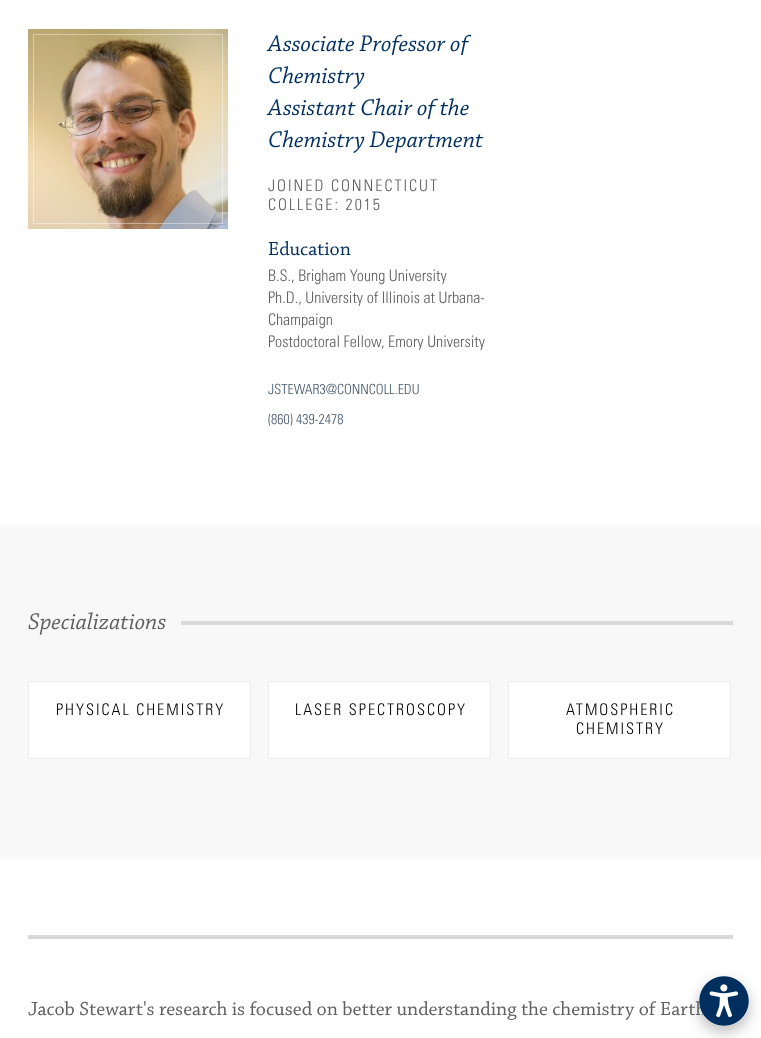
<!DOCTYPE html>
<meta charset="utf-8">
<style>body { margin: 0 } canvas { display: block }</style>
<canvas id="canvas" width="761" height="1038"></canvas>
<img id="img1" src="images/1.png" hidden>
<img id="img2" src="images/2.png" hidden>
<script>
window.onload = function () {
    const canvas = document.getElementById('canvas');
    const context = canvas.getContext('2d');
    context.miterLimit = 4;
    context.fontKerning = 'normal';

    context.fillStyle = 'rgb(255, 255, 255)';
    context.fillRect(0, 0, 761, 1038);
    context.drawImage(document.getElementById('img1'), 28, 29, 200, 200);
    context.strokeStyle = 'rgba(255, 255, 255, 0.4)';
    context.strokeRect(33.5, 34.5, 189, 189);
    context.fillStyle = 'rgb(248, 248, 248)';
    context.fillRect(0, 525, 761, 334);
    context.fillStyle = 'rgb(216, 216, 216)';
    context.fillRect(181, 621, 552, 4);
    context.fillStyle = 'rgb(255, 255, 255)';
    context.beginPath();
    context.rect(28.5, 681.5, 222, 77);
    context.fill();
    context.strokeStyle = 'rgb(235, 235, 235)';
    context.stroke();
    context.beginPath();
    context.rect(268.5, 681.5, 222, 77);
    context.fill();
    context.stroke();
    context.beginPath();
    context.rect(508.5, 681.5, 222, 77);
    context.fill();
    context.stroke();
    context.fillStyle = 'rgb(216, 216, 216)';
    context.fillRect(28, 935, 705, 4);
    context.fillStyle = 'rgba(0, 0, 0, 0.23)';
    context.filter = 'blur(6.5px)';
    context.beginPath();
    context.roundRect(698, 981, 52, 52, 26);
    context.fill();
    context.filter = 'none';
    context.font = 'italic 24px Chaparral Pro';
    context.fillStyle = 'rgb(0, 47, 95)';
    context.fillText('Associate Professor of', 268, 51);
    context.fillText('Chemistry', 268, 83);
    context.fillText('Assistant Chair of the', 268, 115);
    context.fillText('Chemistry Department', 268, 147);
    context.letterSpacing = '2px';
    context.font = '300 16px "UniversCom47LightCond"';
    context.fillStyle = 'rgb(97, 96, 96)';
    context.fillText('JOINED CONNECTICUT', 268, 191);
    context.fillText('COLLEGE: 2015', 268, 210);
    context.letterSpacing = '0px';
    context.font = '20px Chaparral Pro';
    context.fillStyle = 'rgb(0, 47, 95)';
    context.fillText('Education', 268, 255);
    context.font = '300 16px "UniversCom47LightCond"';
    context.fillStyle = 'rgb(97, 96, 96)';
    context.fillText('B.S., Brigham Young University', 268, 281);
    context.fillText('Ph.D., University of Illinois at Urbana-', 268, 303);
    context.fillText('Champaign', 268, 325);
    context.fillText('Postdoctoral Fellow, Emory University', 268, 347);
    context.font = '300 14px "UniversCom47LightCond"';
    context.fillStyle = 'rgb(71, 90, 110)';
    context.fillText('JSTEWAR3@CONNCOLL.EDU', 268, 394);
    context.fillText('(860) 439-2478', 268, 424);
    context.font = 'italic 24px Chaparral Pro';
    context.fillStyle = 'rgb(97, 96, 96)';
    context.fillText('Specializations', 28, 629);
    context.letterSpacing = '2px';
    context.font = '300 16px "UniversCom47LightCond"';
    context.fillStyle = 'rgb(0, 0, 0)';
    context.fillText('PHYSICAL CHEMISTRY', 56, 715);
    context.fillText('LASER SPECTROSCOPY', 295, 715);
    context.fillText('ATMOSPHERIC', 566, 715);
    context.fillText('CHEMISTRY', 576, 734);
    context.letterSpacing = '0px';
    context.font = '20px Chaparral Pro';
    context.fillStyle = 'rgb(97, 96, 96)';
    context.fillText('Jacob Stewart\'s research is focused on better understanding the chemistry of Earth', 28, 1015);
    context.drawImage(document.getElementById('img2'), 699, 976, 50, 50);
};
</script>
